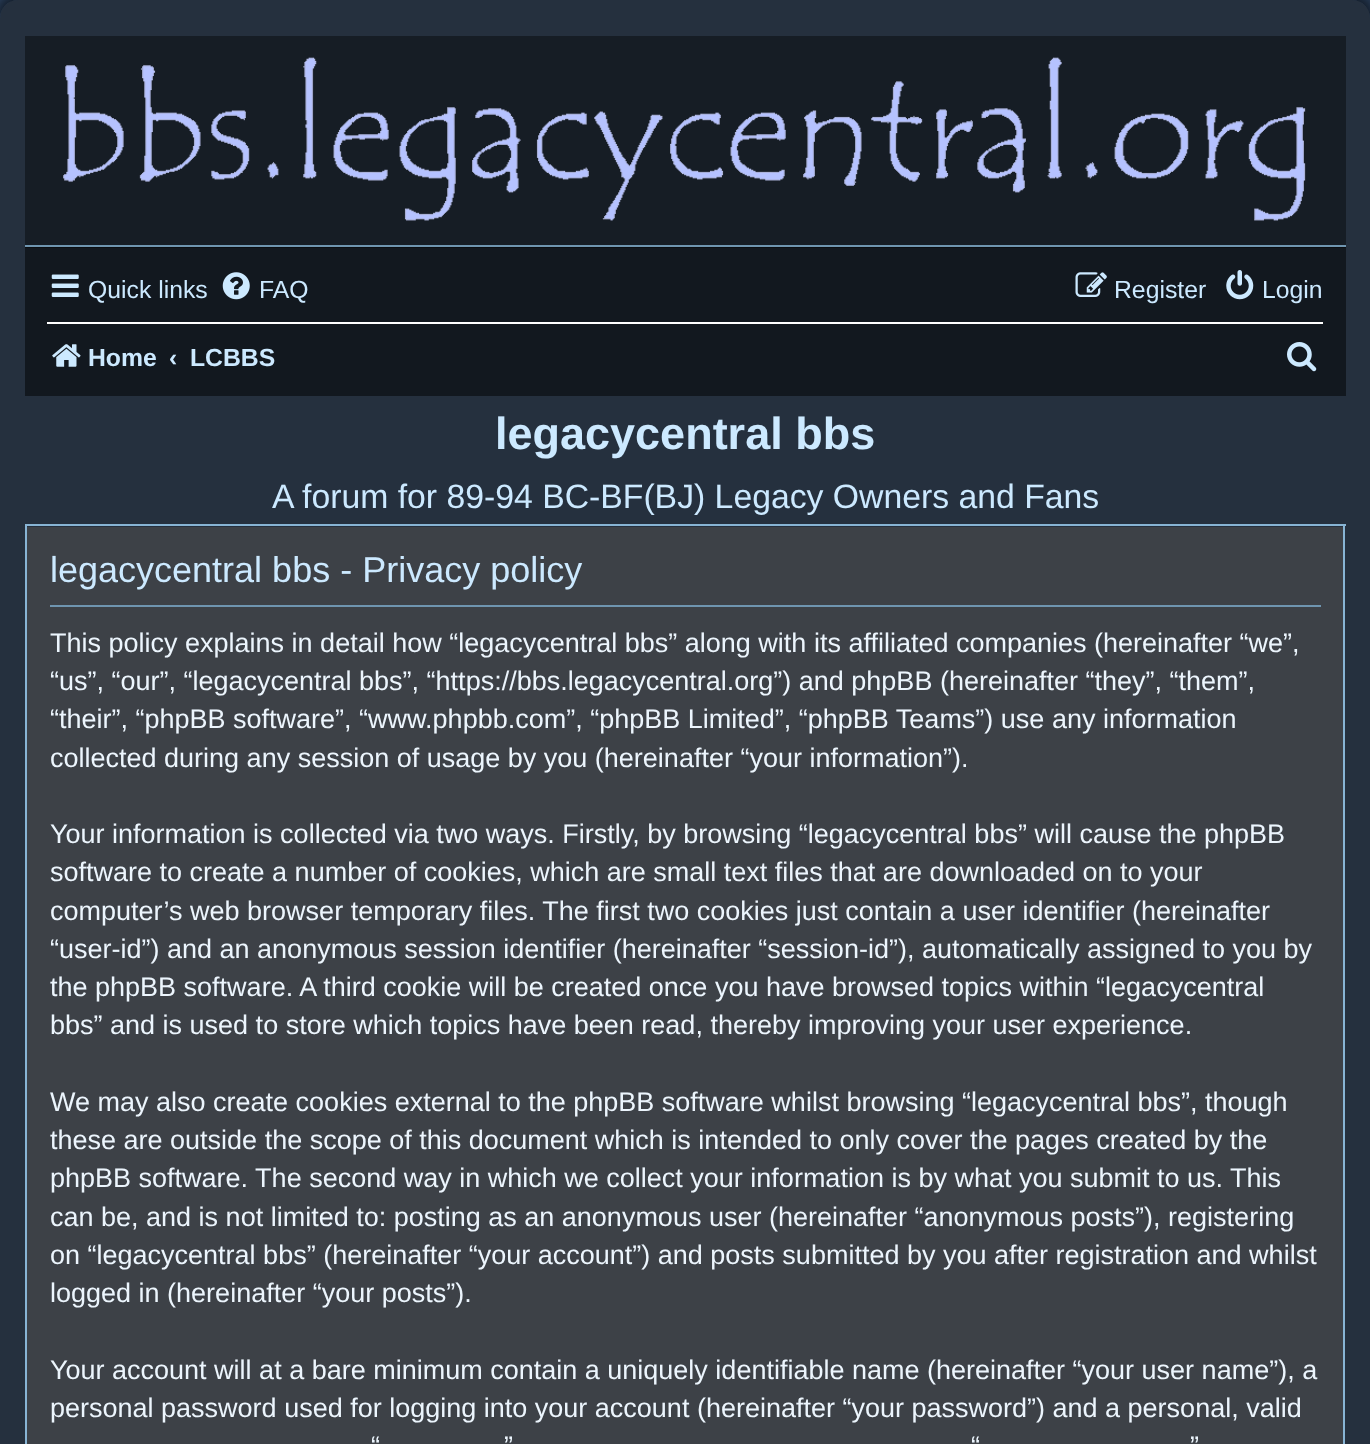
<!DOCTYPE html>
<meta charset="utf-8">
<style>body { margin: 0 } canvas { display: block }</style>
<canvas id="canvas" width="1370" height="1444"></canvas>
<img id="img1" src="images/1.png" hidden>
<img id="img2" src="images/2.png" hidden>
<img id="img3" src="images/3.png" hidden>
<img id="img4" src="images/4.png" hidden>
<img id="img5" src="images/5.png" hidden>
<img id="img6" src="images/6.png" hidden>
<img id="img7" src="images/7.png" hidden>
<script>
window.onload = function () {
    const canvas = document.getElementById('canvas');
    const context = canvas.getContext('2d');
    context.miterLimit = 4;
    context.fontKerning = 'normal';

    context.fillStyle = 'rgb(46, 69, 99)';
    context.fillRect(0, 0, 1370, 1444);
    context.save();
    context.beginPath();
    context.moveTo(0, 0);
    context.lineTo(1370, 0);
    context.lineTo(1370, 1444);
    context.lineTo(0, 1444);
    context.closePath();
    context.moveTo(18, 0);
    context.lineTo(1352, 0);
    context.bezierCurveTo(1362, 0, 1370, 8, 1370, 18);
    context.lineTo(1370, 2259);
    context.bezierCurveTo(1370, 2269, 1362, 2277, 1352, 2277);
    context.lineTo(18, 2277);
    context.bezierCurveTo(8, 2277, 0, 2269, 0, 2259);
    context.lineTo(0, 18);
    context.bezierCurveTo(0, 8, 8, 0, 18, 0);
    context.closePath();
    context.clip('evenodd');
    context.fillStyle = 'rgba(0, 0, 0, 0.62)';
    context.filter = 'blur(7px)';
    context.beginPath();
    context.roundRect(-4, -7, 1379, 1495, 23);
    context.fill();
    context.filter = 'none';
    context.restore();
    context.fillStyle = 'rgba(28, 28, 28, 0.52)';
    context.beginPath();
    context.roundRect(0, 0, 1370, 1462, 18);
    context.fill();
    context.fillStyle = 'rgb(22, 29, 37)';
    context.fillRect(25, 36, 1321, 212);
    context.drawImage(document.getElementById('img1'), 63, 57, 1243, 164);
    context.fillStyle = 'rgba(0, 0, 0, 0.5)';
    context.fillRect(25, 247, 1321, 149);
    context.fillStyle = 'rgb(111, 149, 176)';
    context.fillRect(25, 245, 1321, 2);
    context.drawImage(document.getElementById('img2'), 51, 274, 28, 23);
    context.drawImage(document.getElementById('img3'), 222, 272, 28, 28);
    context.drawImage(document.getElementById('img4'), 1075, 272, 32, 25);
    context.drawImage(document.getElementById('img5'), 1226, 270, 28, 30);
    context.fillStyle = 'rgb(255, 255, 255)';
    context.fillRect(47, 322, 1276, 2);
    context.drawImage(document.getElementById('img6'), 52, 344, 29, 23);
    context.drawImage(document.getElementById('img7'), 1287, 342, 30, 30);
    context.fillStyle = 'rgb(61, 65, 71)';
    context.fillRect(27, 527, 1316, 917);
    context.fillStyle = 'rgb(136, 180, 212)';
    context.fillRect(25, 524, 1321, 2);
    context.fillRect(1343, 524, 2, 920);
    context.fillRect(25, 524, 2, 920);
    context.fillStyle = 'rgb(111, 149, 176)';
    context.fillRect(50, 605, 1271, 2);
    context.font = '24.75px Liberation Sans';
    context.fillStyle = 'rgb(204, 233, 255)';
    context.fillText('Quick links', 88, 298);
    context.fillText('FAQ', 259, 298);
    context.fillText('Register', 1114, 298);
    context.fillText('Login', 1262, 298);
    context.font = 'bold 24.75px Liberation Sans';
    context.fillText('Home', 88, 366);
    context.fillText('‹', 169, 366);
    context.fillText('LCBBS', 190, 366);
    context.font = 'bold 45px Liberation Sans';
    context.fillText('legacycentral bbs', 495, 449);
    context.font = '33.75px Liberation Sans';
    context.fillText('A forum for 89-94 BC-BF(BJ) Legacy Owners and Fans', 272, 508);
    context.font = '36px Liberation Sans';
    context.fillText('legacycentral bbs - Privacy policy', 50, 582);
    context.font = '27px Liberation Sans';
    context.fillStyle = 'rgb(236, 245, 253)';
    context.fillText('This policy explains in detail how “legacycentral bbs” along with its affiliated companies (hereinafter “we”,', 50, 652);
    context.fillText('“us”, “our”, “legacycentral bbs”, “https://bbs.legacycentral.org”) and phpBB (hereinafter “they”, “them”,', 50, 690);
    context.fillText('“their”, “phpBB software”, “www.phpbb.com”, “phpBB Limited”, “phpBB Teams”) use any information', 50, 728);
    context.fillText('collected during any session of usage by you (hereinafter “your information”).', 50, 767);
    context.fillText('Your information is collected via two ways. Firstly, by browsing “legacycentral bbs” will cause the phpBB', 50, 843);
    context.fillText('software to create a number of cookies, which are small text files that are downloaded on to your', 50, 881);
    context.fillText('computer’s web browser temporary files. The first two cookies just contain a user identifier (hereinafter', 50, 920);
    context.fillText('“user-id”) and an anonymous session identifier (hereinafter “session-id”), automatically assigned to you by', 50, 958);
    context.fillText('the phpBB software. A third cookie will be created once you have browsed topics within “legacycentral', 50, 996);
    context.fillText('bbs” and is used to store which topics have been read, thereby improving your user experience.', 50, 1034);
    context.fillText('We may also create cookies external to the phpBB software whilst browsing “legacycentral bbs”, though', 50, 1111);
    context.fillText('these are outside the scope of this document which is intended to only cover the pages created by the', 50, 1149);
    context.fillText('phpBB software. The second way in which we collect your information is by what you submit to us. This', 50, 1187);
    context.fillText('can be, and is not limited to: posting as an anonymous user (hereinafter “anonymous posts”), registering', 50, 1226);
    context.fillText('on “legacycentral bbs” (hereinafter “your account”) and posts submitted by you after registration and whilst', 50, 1264);
    context.fillText('logged in (hereinafter “your posts”).', 50, 1302);
    context.fillText('Your account will at a bare minimum contain a uniquely identifiable name (hereinafter “your user name”), a', 50, 1379);
    context.fillText('personal password used for logging into your account (hereinafter “your password”) and a personal, valid', 50, 1417);
    context.fillText('“', 371, 1455);
    context.fillText('”', 504, 1455);
    context.fillText('“', 971, 1455);
    context.fillText('”', 1190, 1455);
};
</script>
